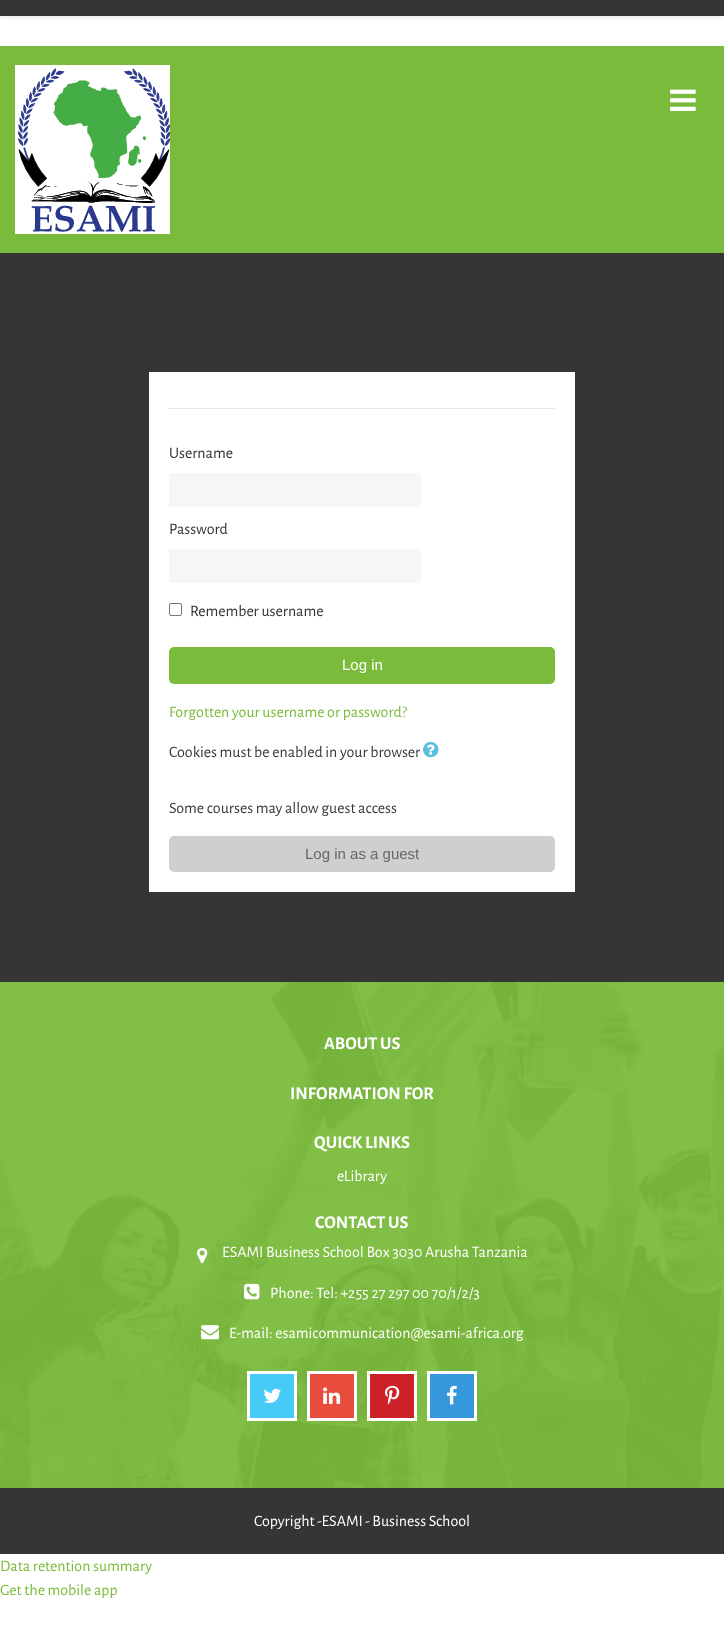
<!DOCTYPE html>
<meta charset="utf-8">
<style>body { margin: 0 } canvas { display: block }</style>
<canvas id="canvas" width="724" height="1627"></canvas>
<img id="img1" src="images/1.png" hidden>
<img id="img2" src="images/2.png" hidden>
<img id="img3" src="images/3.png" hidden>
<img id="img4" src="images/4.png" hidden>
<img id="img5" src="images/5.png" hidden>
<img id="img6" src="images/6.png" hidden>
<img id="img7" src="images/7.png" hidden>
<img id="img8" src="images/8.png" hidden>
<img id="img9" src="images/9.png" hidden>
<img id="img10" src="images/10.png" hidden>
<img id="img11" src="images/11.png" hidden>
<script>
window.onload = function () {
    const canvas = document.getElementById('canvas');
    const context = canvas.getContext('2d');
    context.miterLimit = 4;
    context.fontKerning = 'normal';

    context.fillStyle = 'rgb(255, 255, 255)';
    context.fillRect(0, 0, 724, 1627);
    context.fillStyle = 'rgba(0, 0, 0, 0.08)';
    context.filter = 'blur(2px)';
    context.beginPath();
    context.rect(0, 2, 724, 16);
    context.fill();
    context.filter = 'none';
    context.fillStyle = 'rgb(53, 53, 53)';
    context.fillRect(0, 0, 724, 16);
    context.fillStyle = 'rgb(122, 187, 59)';
    context.fillRect(0, 46, 724, 207);
    context.drawImage(document.getElementById('img1'), 15, 65, 155, 169);
    context.drawImage(document.getElementById('img2'), 670, 89, 26, 22);
    context.fillStyle = 'rgb(53, 53, 53)';
    context.fillRect(0, 253, 724, 729);
    context.fillStyle = 'rgb(255, 255, 255)';
    context.fillRect(149, 372, 426, 520);
    context.fillStyle = 'rgb(230, 230, 230)';
    context.fillRect(169, 408, 386, 1);
    context.fillStyle = 'rgb(246, 246, 246)';
    context.fillRect(169, 473, 252, 34);
    context.fillRect(169, 549, 252, 34);
    context.beginPath();
    context.roundRect(169.5, 603.5, 12, 12, 1.5);
    context.strokeStyle = 'rgb(118, 118, 118)';
    context.stroke();
    context.fillStyle = 'rgb(122, 187, 59)';
    context.beginPath();
    context.roundRect(169, 647, 386, 37, 5);
    context.fill();
    context.drawImage(document.getElementById('img3'), 423, 741, 16, 17);
    context.fillStyle = 'rgb(207, 207, 207)';
    context.beginPath();
    context.roundRect(169, 836, 386, 36, 5);
    context.fill();
    context.drawImage(document.getElementById('img4'), 0, 982, 724, 506);
    context.drawImage(document.getElementById('img5'), 197, 1247, 11, 17);
    context.drawImage(document.getElementById('img6'), 244, 1283, 16, 17);
    context.drawImage(document.getElementById('img7'), 201, 1325, 18, 15);
    context.fillStyle = 'rgb(71, 202, 246)';
    context.beginPath();
    context.rect(248.5, 1372.5, 47, 47);
    context.fill();
    context.strokeStyle = 'rgb(255, 255, 255)';
    context.lineWidth = 3;
    context.stroke();
    context.drawImage(document.getElementById('img8'), 263, 1388, 18, 15);
    context.fillStyle = 'rgb(232, 76, 61)';
    context.beginPath();
    context.rect(308.5, 1372.5, 47, 47);
    context.fill();
    context.stroke();
    context.drawImage(document.getElementById('img9'), 323, 1387, 18, 17);
    context.fillStyle = 'rgb(205, 33, 41)';
    context.beginPath();
    context.rect(368.5, 1372.5, 47, 47);
    context.fill();
    context.stroke();
    context.drawImage(document.getElementById('img10'), 385, 1385, 15, 20);
    context.fillStyle = 'rgb(53, 152, 220)';
    context.beginPath();
    context.rect(428.5, 1372.5, 47, 47);
    context.fill();
    context.stroke();
    context.drawImage(document.getElementById('img11'), 447, 1385, 10, 20);
    context.fillStyle = 'rgb(53, 53, 53)';
    context.fillRect(0, 1488, 724, 66);
    context.font = '16px Alegreya Sans';
    context.fillStyle = 'rgb(51, 51, 51)';
    context.fillText('Username', 169, 458);
    context.fillText('Password', 169, 534);
    context.fillText('Remember username', 190, 616);
    context.font = '15px Liberation Sans';
    context.fillStyle = 'rgb(255, 255, 255)';
    context.fillText('Log in', 342, 670);
    context.font = '16px Alegreya Sans';
    context.fillStyle = 'rgb(122, 187, 59)';
    context.fillText('Forgotten your username or password?', 169, 717);
    context.fillStyle = 'rgb(55, 58, 60)';
    context.fillText('Cookies must be enabled in your browser', 169, 757);
    context.fillText('Some courses may allow guest access', 169, 813);
    context.font = '15px Liberation Sans';
    context.fillStyle = 'rgb(103, 103, 103)';
    context.fillText('Log in as a guest', 305, 859);
    context.font = 'bold 18px Alegreya Sans';
    context.fillStyle = 'rgb(255, 255, 255)';
    context.fillText('ABOUT US', 324, 1049);
    context.fillText('INFORMATION FOR', 290, 1099);
    context.fillText('QUICK LINKS', 314, 1148);
    context.font = '16px Alegreya Sans';
    context.fillText('eLibrary', 337, 1181);
    context.font = 'bold 18px Alegreya Sans';
    context.fillText('CONTACT US', 315, 1228);
    context.font = '16px Alegreya Sans';
    context.fillText('ESAMI Business School Box 3030 Arusha Tanzania', 222, 1257);
    context.fillText('Phone: Tel: +255 27 297 00 70/1/2/3', 270, 1298);
    context.fillText('E-mail: esamicommunication@esami-africa.org', 229, 1338);
    context.fillText('Copyright -ESAMI - Business School', 254, 1526);
    context.fillStyle = 'rgb(122, 187, 59)';
    context.fillText('Data retention summary', 0, 1571);
    context.fillText('Get the mobile app', 0, 1595);
};
</script>
